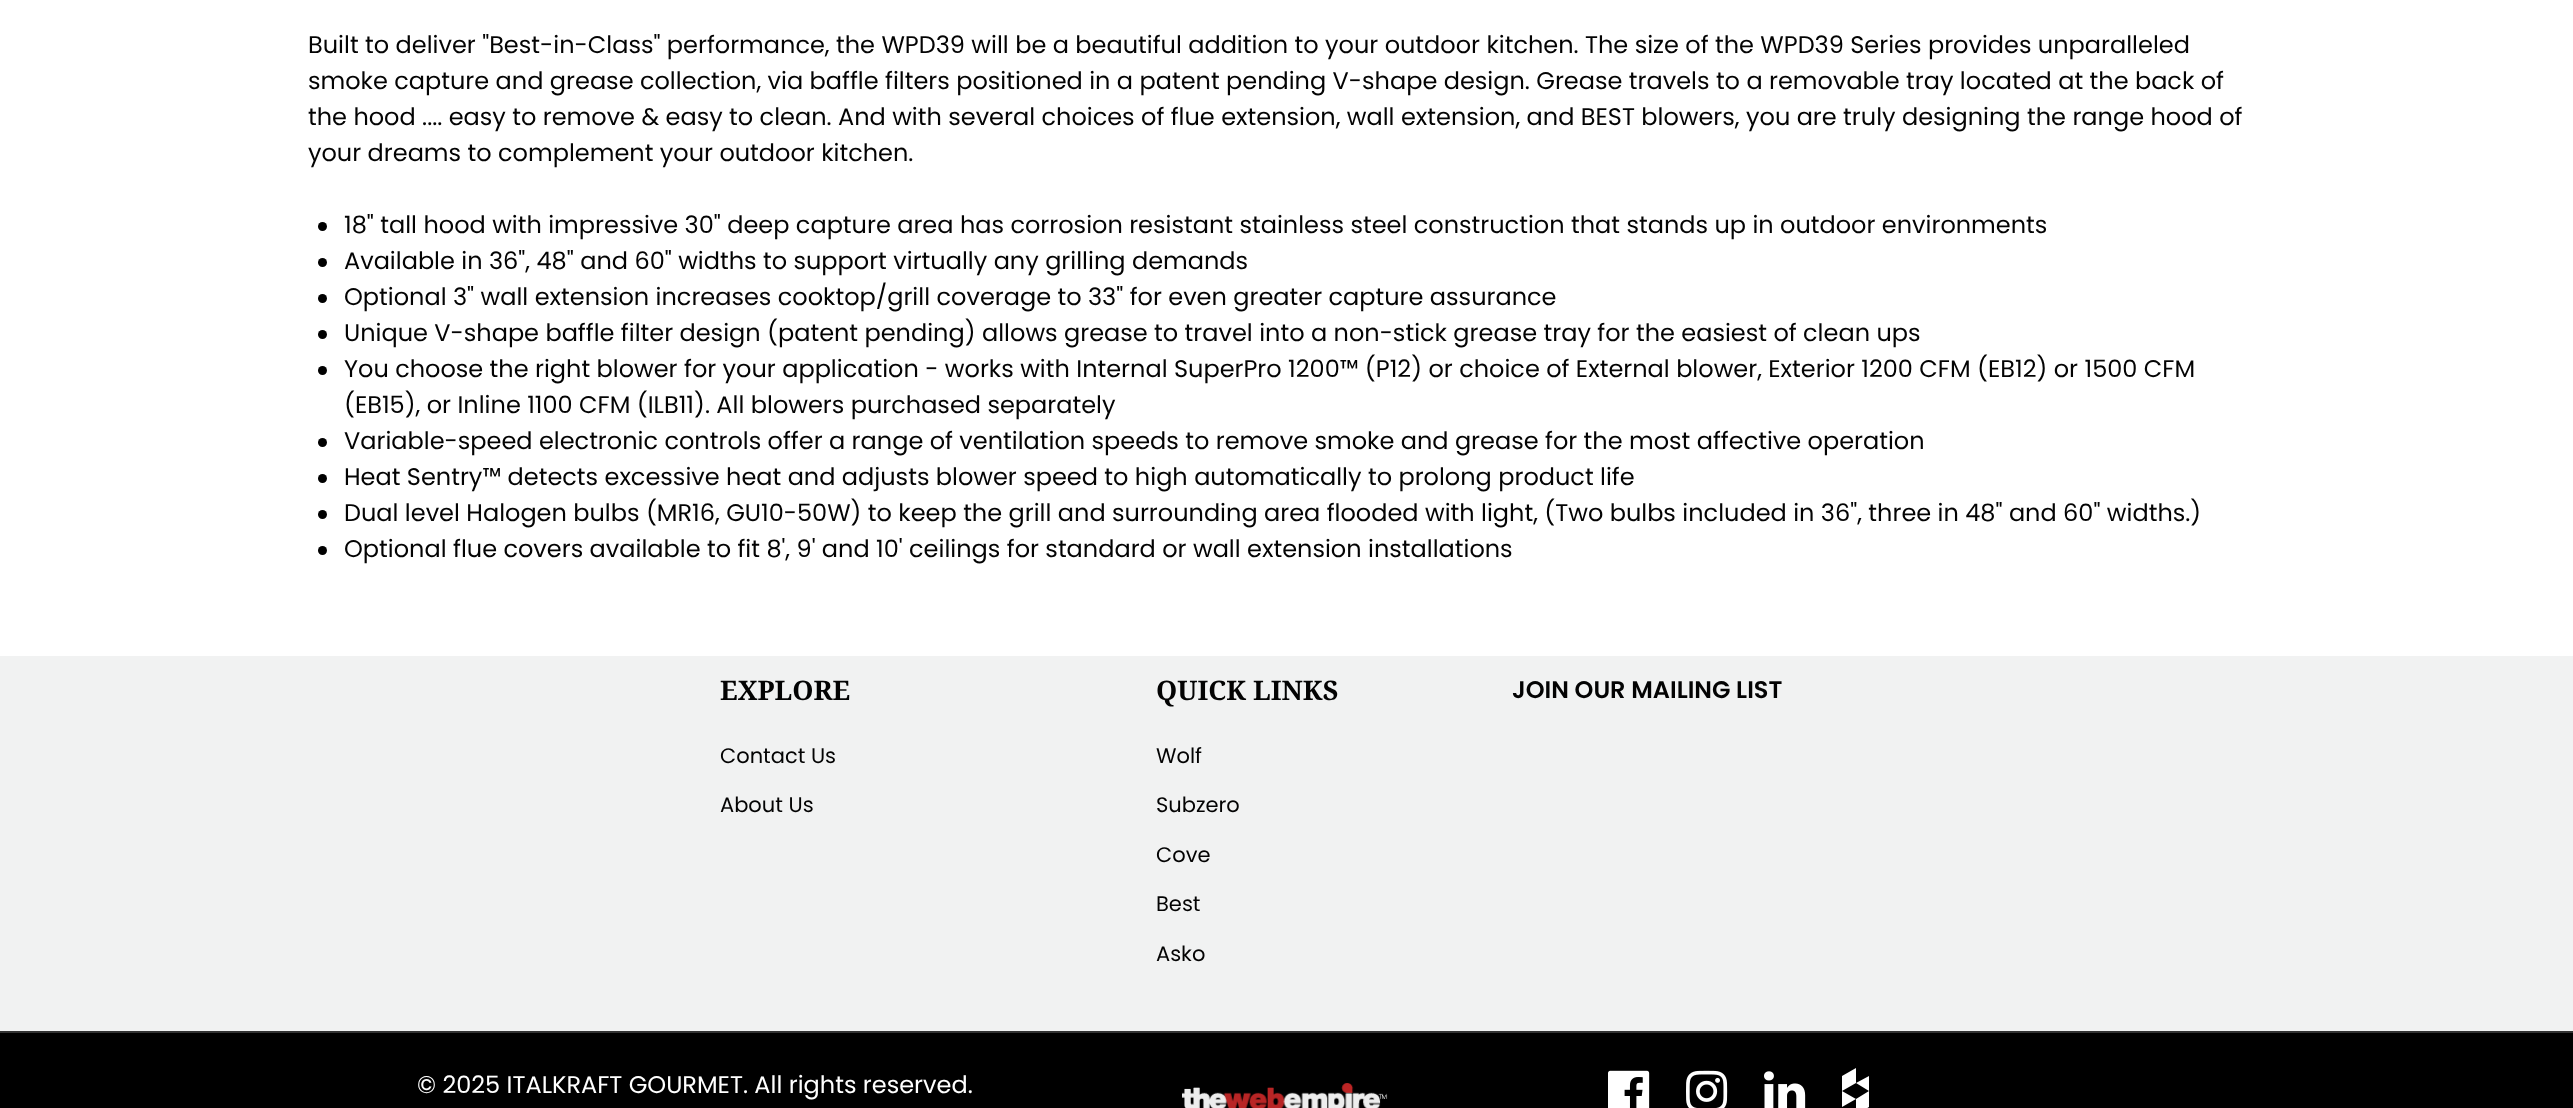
<!DOCTYPE html>
<meta charset="utf-8">
<style>body { margin: 0 } canvas { display: block }</style>
<canvas id="canvas" width="2573" height="1108"></canvas>
<img id="img1" src="images/1.png" hidden>
<img id="img2" src="images/2.png" hidden>
<img id="img3" src="images/3.png" hidden>
<img id="img4" src="images/4.png" hidden>
<script>
window.onload = function () {
    const canvas = document.getElementById('canvas');
    const context = canvas.getContext('2d');
    context.miterLimit = 4;
    context.fontKerning = 'normal';

    context.fillStyle = 'rgb(255, 255, 255)';
    context.fillRect(0, 0, 2573, 1108);
    context.fillStyle = 'rgb(0, 0, 0)';
    context.beginPath();
    context.arc(322.5, 226.5, 4.5, 0, 2 * Math.PI);
    context.fill();
    context.beginPath();
    context.arc(322.5, 262.5, 4.5, 0, 2 * Math.PI);
    context.fill();
    context.beginPath();
    context.arc(322.5, 298.5, 4.5, 0, 2 * Math.PI);
    context.fill();
    context.beginPath();
    context.arc(322.5, 334.5, 4.5, 0, 2 * Math.PI);
    context.fill();
    context.beginPath();
    context.arc(322.5, 370.5, 4.5, 0, 2 * Math.PI);
    context.fill();
    context.beginPath();
    context.arc(322.5, 442.5, 4.5, 0, 2 * Math.PI);
    context.fill();
    context.beginPath();
    context.arc(322.5, 478.5, 4.5, 0, 2 * Math.PI);
    context.fill();
    context.beginPath();
    context.arc(322.5, 514.5, 4.5, 0, 2 * Math.PI);
    context.fill();
    context.beginPath();
    context.arc(322.5, 550.5, 4.5, 0, 2 * Math.PI);
    context.fill();
    context.fillStyle = 'rgb(241, 242, 242)';
    context.fillRect(0, 656, 2573, 375);
    context.fillStyle = 'rgb(0, 0, 0)';
    context.fillRect(0, 1033, 2573, 75);
    context.fillStyle = 'rgb(51, 51, 51)';
    context.fillRect(0, 1031, 2573, 2);
    context.drawImage(document.getElementById('img1'), 1182, 1083, 206, 25);
    context.drawImage(document.getElementById('img2'), 1608, 1070, 42, 38);
    context.drawImage(document.getElementById('img3'), 1686, 1070, 42, 38);
    context.drawImage(document.getElementById('img4'), 1764, 1071, 42, 37);
    context.fillStyle = 'rgb(255, 255, 255)';
    context.beginPath();
    context.moveTo(1856, 1099);
    context.lineTo(1869, 1091);
    context.lineTo(1869, 1107);
    context.lineTo(1856, 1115);
    context.closePath();
    context.moveTo(1842, 1091);
    context.lineTo(1842, 1107);
    context.lineTo(1856, 1099);
    context.closePath();
    context.moveTo(1856, 1068);
    context.lineTo(1856, 1083);
    context.lineTo(1842, 1091);
    context.lineTo(1842, 1076);
    context.closePath();
    context.moveTo(1856, 1083);
    context.lineTo(1869, 1076);
    context.lineTo(1869, 1091);
    context.closePath();
    context.fill();
    context.font = '24px Poppins';
    context.fillStyle = 'rgb(3, 3, 3)';
    context.fillText('Built to deliver "Best-in-Class" performance, the WPD39 will be a beautiful addition to your outdoor kitchen. The size of the WPD39 Series provides unparalleled', 308, 53);
    context.fillText('smoke capture and grease collection, via baffle filters positioned in a patent pending V-shape design. Grease travels to a removable tray located at the back of', 308, 89);
    context.fillText('the hood .... easy to remove & easy to clean. And with several choices of flue extension, wall extension, and BEST blowers, you are truly designing the range hood of', 308, 125);
    context.fillText('your dreams to complement your outdoor kitchen.', 308, 161);
    context.fillText('18" tall hood with impressive 30" deep capture area has corrosion resistant stainless steel construction that stands up in outdoor environments', 344, 233);
    context.fillText('Available in 36", 48" and 60" widths to support virtually any grilling demands', 344, 269);
    context.fillText('Optional 3" wall extension increases cooktop/grill coverage to 33" for even greater capture assurance', 344, 305);
    context.fillText('Unique V-shape baffle filter design (patent pending) allows grease to travel into a non-stick grease tray for the easiest of clean ups', 344, 341);
    context.fillText('You choose the right blower for your application - works with Internal SuperPro 1200™ (P12) or choice of External blower, Exterior 1200 CFM (EB12) or 1500 CFM', 344, 377);
    context.fillText('(EB15), or Inline 1100 CFM (ILB11). All blowers purchased separately', 344, 413);
    context.fillText('Variable-speed electronic controls offer a range of ventilation speeds to remove smoke and grease for the most affective operation', 344, 449);
    context.fillText('Heat Sentry™ detects excessive heat and adjusts blower speed to high automatically to prolong product life', 344, 485);
    context.fillText('Dual level Halogen bulbs (MR16, GU10-50W) to keep the grill and surrounding area flooded with light, (Two bulbs included in 36", three in 48" and 60" widths.)', 344, 521);
    context.fillText('Optional flue covers available to fit 8\', 9\' and 10\' ceilings for standard or wall extension installations', 344, 557);
    context.font = 'bold 27px Noto Serif';
    context.fillText('EXPLORE', 720, 700);
    context.font = '21px Poppins';
    context.fillText('Contact Us', 720, 763);
    context.fillText('About Us', 720, 812);
    context.font = 'bold 27px Noto Serif';
    context.fillText('QUICK LINKS', 1156, 700);
    context.font = '21px Poppins';
    context.fillText('Wolf', 1156, 763);
    context.fillText('Subzero', 1156, 812);
    context.fillText('Cove', 1156, 862);
    context.fillText('Best', 1156, 911);
    context.fillText('Asko', 1156, 961);
    context.font = '600 24px Poppins';
    context.fillText('JOIN OUR MAILING LIST', 1512, 698);
    context.font = '24px Poppins';
    context.fillStyle = 'rgb(255, 255, 255)';
    context.fillText('© 2025 ITALKRAFT GOURMET. All rights reserved.', 417, 1093);
};
</script>
